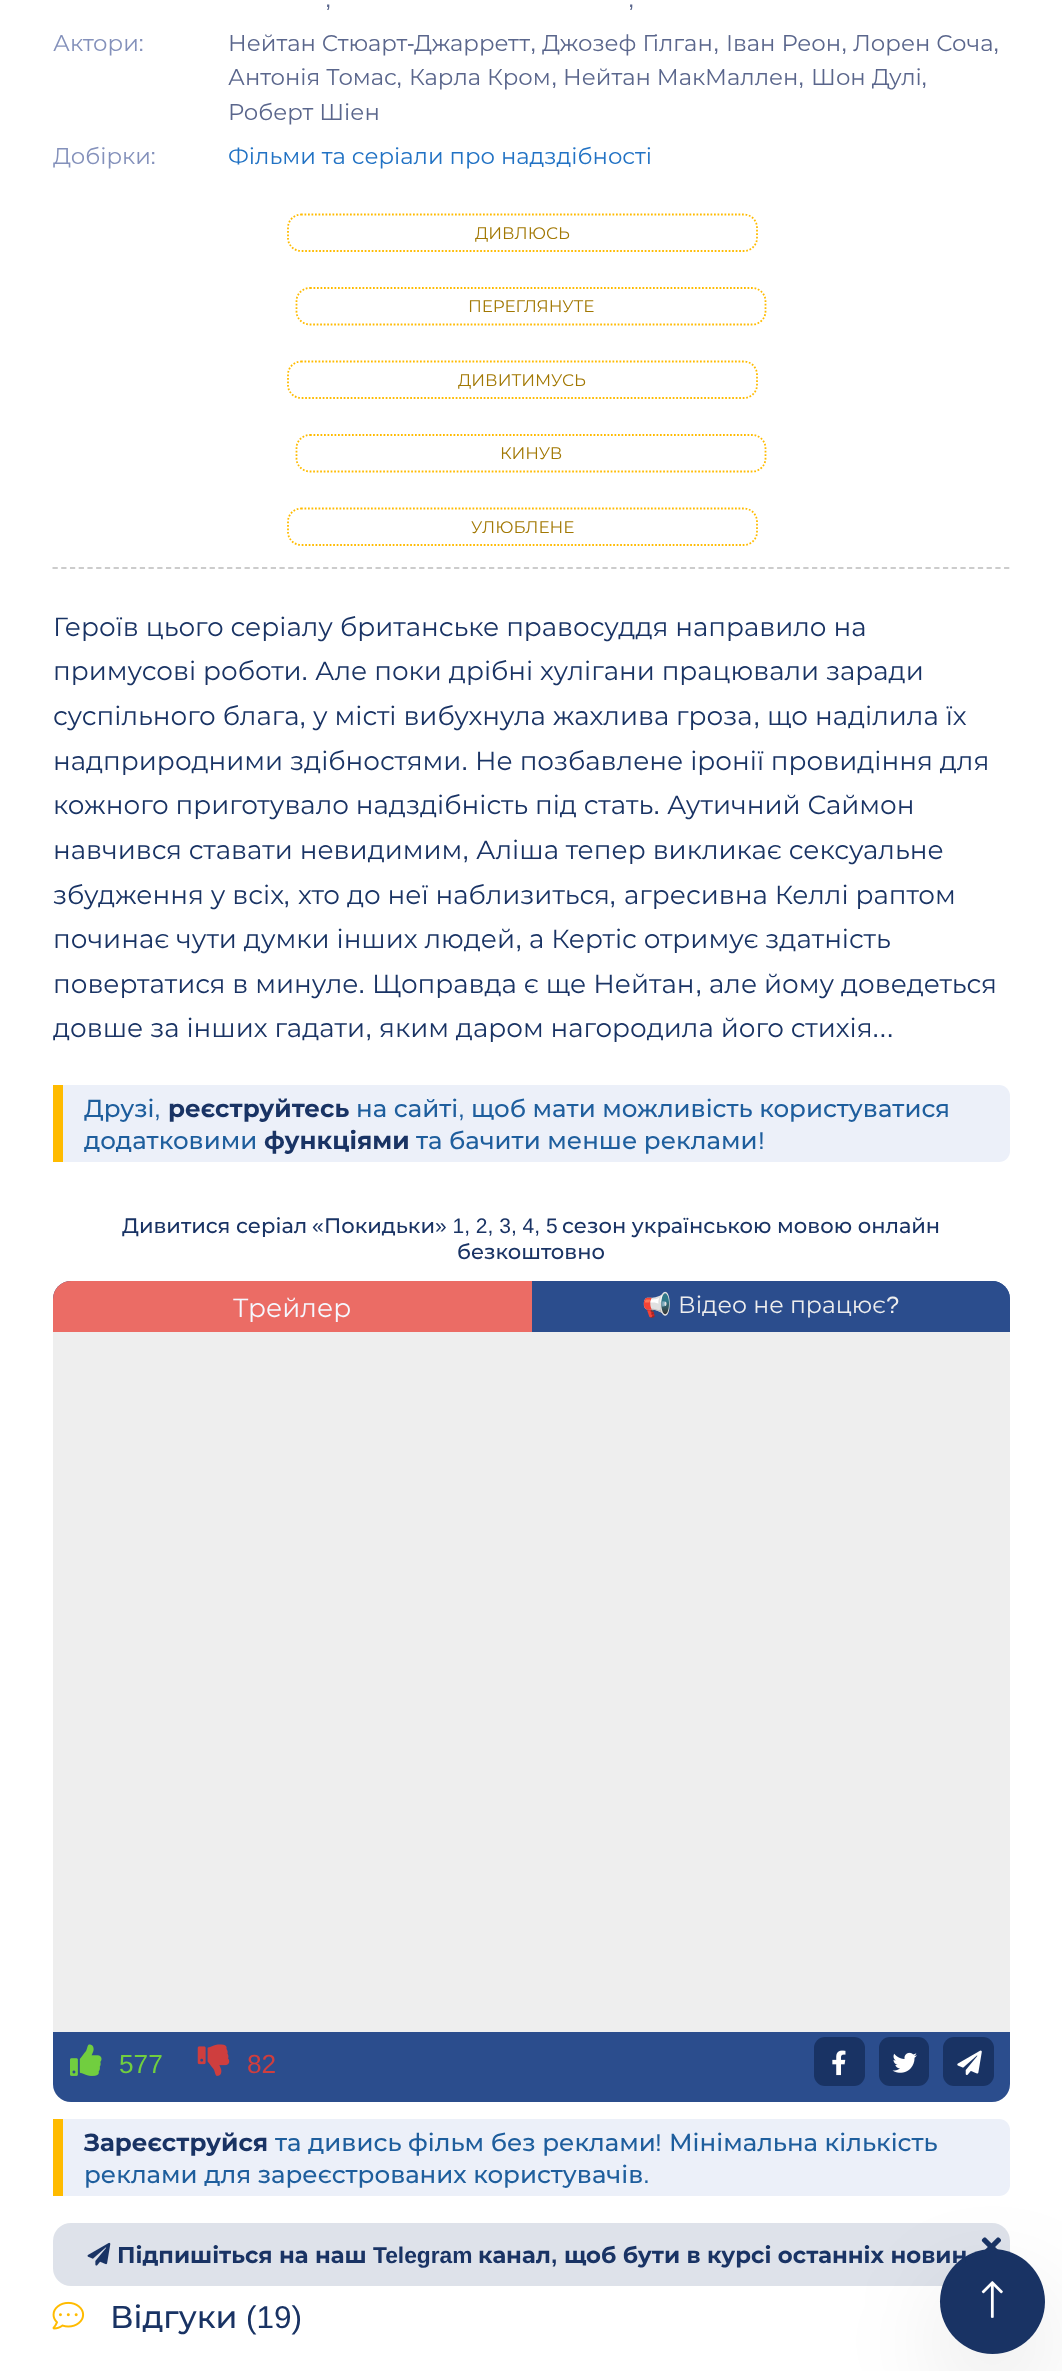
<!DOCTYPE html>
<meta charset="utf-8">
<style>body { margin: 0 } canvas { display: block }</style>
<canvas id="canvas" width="1062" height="2371"></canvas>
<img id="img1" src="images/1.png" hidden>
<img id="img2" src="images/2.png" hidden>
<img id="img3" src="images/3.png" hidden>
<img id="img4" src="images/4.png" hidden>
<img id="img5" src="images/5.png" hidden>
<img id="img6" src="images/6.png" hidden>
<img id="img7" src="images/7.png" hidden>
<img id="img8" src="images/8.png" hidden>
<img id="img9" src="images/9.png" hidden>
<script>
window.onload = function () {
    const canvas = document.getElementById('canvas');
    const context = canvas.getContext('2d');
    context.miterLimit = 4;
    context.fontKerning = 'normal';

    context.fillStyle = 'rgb(255, 255, 255)';
    context.fillRect(0, 0, 1062, 2371);
    context.beginPath();
    context.moveTo(301, 214.5);
    context.lineTo(744, 214.5);
    context.bezierCurveTo(751, 214.5, 757, 220.5, 757, 227.5);
    context.lineTo(757, 238);
    context.bezierCurveTo(757, 245, 751, 251, 744, 251);
    context.lineTo(301, 251);
    context.bezierCurveTo(294, 251, 288, 245, 288, 238);
    context.lineTo(288, 227.5);
    context.bezierCurveTo(288, 220.5, 294, 214.5, 301, 214.5);
    context.closePath();
    context.strokeStyle = 'rgb(255, 187, 0)';
    context.lineWidth = 1.8;
    context.setLineDash([1.75, 1.75]);
    context.stroke();
    context.beginPath();
    context.moveTo(310, 288);
    context.lineTo(752.5, 288);
    context.bezierCurveTo(759.5, 288, 765.5, 294, 765.5, 301);
    context.lineTo(765.5, 311.5);
    context.bezierCurveTo(765.5, 318.5, 759.5, 324.5, 752.5, 324.5);
    context.lineTo(310, 324.5);
    context.bezierCurveTo(302.5, 324.5, 296.5, 318.5, 296.5, 311.5);
    context.lineTo(296.5, 301);
    context.bezierCurveTo(296.5, 294, 302.5, 288, 310, 288);
    context.closePath();
    context.stroke();
    context.beginPath();
    context.moveTo(301, 361.5);
    context.lineTo(744, 361.5);
    context.bezierCurveTo(751, 361.5, 757, 367.5, 757, 374.5);
    context.lineTo(757, 385);
    context.bezierCurveTo(757, 392, 751, 398, 744, 398);
    context.lineTo(301, 398);
    context.bezierCurveTo(294, 398, 288, 392, 288, 385);
    context.lineTo(288, 374.5);
    context.bezierCurveTo(288, 367.5, 294, 361.5, 301, 361.5);
    context.closePath();
    context.stroke();
    context.beginPath();
    context.moveTo(310, 435);
    context.lineTo(752.5, 435);
    context.bezierCurveTo(759.5, 435, 765.5, 441, 765.5, 448);
    context.lineTo(765.5, 458.5);
    context.bezierCurveTo(765.5, 465.5, 759.5, 471.5, 752.5, 471.5);
    context.lineTo(310, 471.5);
    context.bezierCurveTo(302.5, 471.5, 296.5, 465.5, 296.5, 458.5);
    context.lineTo(296.5, 448);
    context.bezierCurveTo(296.5, 441, 302.5, 435, 310, 435);
    context.closePath();
    context.stroke();
    context.beginPath();
    context.moveTo(301, 508.5);
    context.lineTo(744, 508.5);
    context.bezierCurveTo(751, 508.5, 757, 514.5, 757, 521.5);
    context.lineTo(757, 532);
    context.bezierCurveTo(757, 539, 751, 545, 744, 545);
    context.lineTo(301, 545);
    context.bezierCurveTo(294, 545, 288, 539, 288, 532);
    context.lineTo(288, 521.5);
    context.bezierCurveTo(288, 514.5, 294, 508.5, 301, 508.5);
    context.closePath();
    context.stroke();
    context.beginPath();
    context.moveTo(52.5, 568);
    context.lineTo(1010, 568);
    context.strokeStyle = 'rgb(204, 204, 204)';
    context.setLineDash([5.25, 3.48]);
    context.stroke();
    context.fillStyle = 'rgb(236, 240, 249)';
    context.beginPath();
    context.roundRect(53, 1085, 957, 77, [0, 11, 11, 0]);
    context.fill();
    context.fillStyle = 'rgb(255, 187, 0)';
    context.fillRect(53, 1085, 10, 77);
    context.fillStyle = 'rgb(43, 77, 141)';
    context.beginPath();
    context.roundRect(53, 1281, 957, 821, 18);
    context.fill();
    context.fillStyle = 'rgb(235, 108, 101)';
    context.beginPath();
    context.roundRect(53, 1281, 479, 51, [18, 0, 0, 0]);
    context.fill();
    context.fillStyle = 'rgb(43, 77, 141)';
    context.beginPath();
    context.roundRect(532, 1281, 478, 51, [0, 18, 0, 0]);
    context.fill();
    context.fillStyle = 'rgb(238, 238, 238)';
    context.fillRect(53, 1332, 957, 700);
    context.drawImage(document.getElementById('img1'), 70, 2044, 32, 32);
    context.drawImage(document.getElementById('img2'), 197, 2044, 33, 32);
    context.fillStyle = 'rgb(25, 51, 100)';
    context.beginPath();
    context.roundRect(814, 2037, 51, 49, 11);
    context.fill();
    context.drawImage(document.getElementById('img3'), 832, 2050, 14, 26);
    context.beginPath();
    context.roundRect(879, 2037, 50, 49, 11);
    context.fill();
    context.drawImage(document.getElementById('img4'), 892, 2052, 25, 21);
    context.beginPath();
    context.roundRect(943, 2037, 51, 49, 11);
    context.fill();
    context.drawImage(document.getElementById('img5'), 957, 2050, 25, 25);
    context.fillStyle = 'rgb(236, 240, 249)';
    context.beginPath();
    context.roundRect(53, 2119, 957, 77, [0, 11, 11, 0]);
    context.fill();
    context.fillStyle = 'rgb(255, 187, 0)';
    context.fillRect(53, 2119, 10, 77);
    context.fillStyle = 'rgb(222, 226, 234)';
    context.beginPath();
    context.roundRect(53, 2223, 957, 63, 18);
    context.fill();
    context.drawImage(document.getElementById('img6'), 981, 2237, 20, 13);
    context.drawImage(document.getElementById('img7'), 87, 2242, 24, 24);
    context.drawImage(document.getElementById('img8'), 52, 2301, 33, 29);
    context.fillStyle = 'rgba(0, 0, 0, 0.1)';
    context.filter = 'blur(50px)';
    context.beginPath();
    context.roundRect(940, 2289, 105, 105, 52.5);
    context.fill();
    context.filter = 'none';
    context.fillStyle = 'rgb(25, 51, 100)';
    context.beginPath();
    context.arc(992.5, 2301.5, 52.5, 0, 2 * Math.PI);
    context.fill();
    context.drawImage(document.getElementById('img9'), 981, 2281, 22, 37);
    context.font = '22.75px Liberation Sans';
    context.fillStyle = 'rgb(90, 102, 140)';
    context.fillText(',', 325, 7);
    context.fillText(',', 628, 7);
    context.font = '22.75px Montserrat';
    context.fillStyle = 'rgb(132, 145, 187)';
    context.fillText('Актори', 53, 51);
    context.font = '22.75px Liberation Sans';
    context.fillText(':', 138, 51);
    context.font = '22.75px Montserrat';
    context.fillStyle = 'rgb(90, 102, 140)';
    context.fillText('Нейтан Стюарт', 228, 51);
    context.font = '22.75px Liberation Sans';
    context.fillText('-', 407, 51);
    context.font = '22.75px Montserrat';
    context.fillText('Джарретт', 414, 51);
    context.fillText('Джозеф Гілган', 542, 51);
    context.fillText('Іван Реон', 726, 51);
    context.fillText('Лорен Соча', 853, 51);
    context.font = '22.75px Liberation Sans';
    context.fillText(',', 530, 51);
    context.fillText(',', 713, 51);
    context.fillText(',', 841, 51);
    context.fillText(',', 993, 51);
    context.font = '22.75px Montserrat';
    context.fillText('Антонія Томас', 228, 85);
    context.font = '22.75px Liberation Sans';
    context.fillText(',', 396, 85);
    context.font = '22.75px Montserrat';
    context.fillText('Карла Кром', 409, 85);
    context.font = '22.75px Liberation Sans';
    context.fillText(',', 551, 85);
    context.font = '22.75px Montserrat';
    context.fillText('Нейтан МакМаллен', 563, 85);
    context.font = '22.75px Liberation Sans';
    context.fillText(',', 798, 85);
    context.font = '22.75px Montserrat';
    context.fillText('Шон Дулі', 811, 85);
    context.font = '22.75px Liberation Sans';
    context.fillText(',', 921, 85);
    context.font = '22.75px Montserrat';
    context.fillText('Роберт Шіен', 228, 120);
    context.fillStyle = 'rgb(132, 145, 187)';
    context.fillText('Добірки', 53, 164);
    context.font = '22.75px Liberation Sans';
    context.fillText(':', 150, 164);
    context.font = '22.75px Montserrat';
    context.fillStyle = 'rgb(33, 114, 196)';
    context.fillText('Фільми та серіали про надздібності', 228, 164);
    context.font = '16.75px Montserrat';
    context.fillStyle = 'rgb(162, 120, 3)';
    context.fillText('ДИВЛЮСЬ', 475, 239);
    context.fillText('ПЕРЕГЛЯНУТЕ', 468, 312);
    context.fillText('ДИВИТИМУСЬ', 458, 386);
    context.fillText('КИНУВ', 500, 459);
    context.fillText('УЛЮБЛЕНЕ', 471, 533);
    context.font = '26.25px Montserrat';
    context.fillStyle = 'rgb(25, 51, 100)';
    context.fillText('Героїв цього серіалу британське правосуддя направило на', 53, 636);
    context.fillText('примусові роботи', 53, 680);
    context.font = '26.25px Liberation Sans';
    context.fillText('.', 301, 680);
    context.font = '26.25px Montserrat';
    context.fillText('Але поки дрібні хулігани працювали заради', 315, 680);
    context.fillText('суспільного блага', 53, 725);
    context.font = '26.25px Liberation Sans';
    context.fillText(',', 299, 725);
    context.font = '26.25px Montserrat';
    context.fillText('у місті вибухнула жахлива гроза', 313, 725);
    context.font = '26.25px Liberation Sans';
    context.fillText(',', 753, 725);
    context.font = '26.25px Montserrat';
    context.fillText('що наділила їх', 767, 725);
    context.fillText('надприродними здібностями', 53, 770);
    context.font = '26.25px Liberation Sans';
    context.fillText('.', 461, 770);
    context.font = '26.25px Montserrat';
    context.fillText('Не позбавлене іронії провидіння для', 475, 770);
    context.fillText('кожного приготувало надздібність під стать', 53, 814);
    context.font = '26.25px Liberation Sans';
    context.fillText('.', 653, 814);
    context.font = '26.25px Montserrat';
    context.fillText('Аутичний Саймон', 667, 814);
    context.fillText('навчився ставати невидимим', 53, 859);
    context.font = '26.25px Liberation Sans';
    context.fillText(',', 462, 859);
    context.font = '26.25px Montserrat';
    context.fillText('Аліша тепер викликає сексуальне', 476, 859);
    context.fillText('збудження у всіх', 53, 904);
    context.font = '26.25px Liberation Sans';
    context.fillText(',', 283, 904);
    context.font = '26.25px Montserrat';
    context.fillText('хто до неї наблизиться', 298, 904);
    context.font = '26.25px Liberation Sans';
    context.fillText(',', 609, 904);
    context.font = '26.25px Montserrat';
    context.fillText('агресивна Келлі раптом', 624, 904);
    context.fillText('починає чути думки інших людей', 53, 948);
    context.font = '26.25px Liberation Sans';
    context.fillText(',', 515, 948);
    context.font = '26.25px Montserrat';
    context.fillText('а Кертіс отримує здатність', 529, 948);
    context.fillText('повертатися в минуле', 53, 993);
    context.font = '26.25px Liberation Sans';
    context.fillText('.', 358, 993);
    context.font = '26.25px Montserrat';
    context.fillText('Щоправда є ще Нейтан', 372, 993);
    context.font = '26.25px Liberation Sans';
    context.fillText(',', 695, 993);
    context.font = '26.25px Montserrat';
    context.fillText('але йому доведеться', 709, 993);
    context.fillText('довше за інших гадати', 53, 1037);
    context.font = '26.25px Liberation Sans';
    context.fillText(',', 365, 1037);
    context.font = '26.25px Montserrat';
    context.fillText('яким даром нагородила його стихія', 379, 1037);
    context.font = '26.25px Liberation Sans';
    context.fillText('...', 872, 1037);
    context.font = '500 24.5px Montserrat';
    context.fillStyle = 'rgb(30, 94, 157)';
    context.fillText('Друзі', 84, 1117);
    context.font = '24.5px Liberation Sans';
    context.fillText(',', 154, 1117);
    context.font = 'bold 24.5px Montserrat';
    context.fillStyle = 'rgb(25, 51, 100)';
    context.fillText('реєструйтесь', 168, 1117);
    context.font = '500 24.5px Montserrat';
    context.fillStyle = 'rgb(30, 94, 157)';
    context.fillText('на сайті', 356, 1117);
    context.font = '24.5px Liberation Sans';
    context.fillText(',', 458, 1117);
    context.font = '500 24.5px Montserrat';
    context.fillText('щоб мати можливість користуватися', 471, 1117);
    context.fillText('додатковими', 84, 1149);
    context.font = 'bold 24.5px Montserrat';
    context.fillStyle = 'rgb(25, 51, 100)';
    context.fillText('функціями', 264, 1149);
    context.font = '500 24.5px Montserrat';
    context.fillStyle = 'rgb(30, 94, 157)';
    context.fillText('та бачити менше реклами', 416, 1149);
    context.font = '24.5px Liberation Sans';
    context.fillText('!', 758, 1149);
    context.font = '500 21px Montserrat';
    context.fillStyle = 'rgb(25, 51, 100)';
    context.fillText('Дивитися серіал', 122, 1233);
    context.font = '21px Liberation Sans';
    context.fillText('«', 312, 1233);
    context.font = '500 21px Montserrat';
    context.fillText('Покидьки', 324, 1233);
    context.font = '21px Liberation Sans';
    context.fillText('» 1, 2, 3, 4, 5', 435, 1233);
    context.font = '500 21px Montserrat';
    context.fillText('сезон українською мовою онлайн', 562, 1233);
    context.fillText('безкоштовно', 457, 1259);
    context.font = '26.25px Montserrat';
    context.fillStyle = 'rgb(245, 248, 255)';
    context.fillText('Трейлер', 233, 1317);
    context.font = '23.6px Noto Color Emoji';
    context.fillStyle = 'rgb(238, 238, 238)';
    context.fillText('📢', 642, 1313);
    context.font = '23.6px Montserrat';
    context.fillText('Відео не працює', 678, 1313);
    context.font = '23.6px Liberation Sans';
    context.fillText('?', 886, 1313);
    context.font = '26.25px Liberation Sans';
    context.fillStyle = 'rgb(113, 206, 63)';
    context.fillText('577', 119, 2073);
    context.fillStyle = 'rgb(207, 62, 62)';
    context.fillText('82', 247, 2073);
    context.font = 'bold 24.5px Montserrat';
    context.fillStyle = 'rgb(25, 51, 100)';
    context.fillText('Зареєструйся', 84, 2151);
    context.font = '500 24.5px Montserrat';
    context.fillStyle = 'rgb(30, 94, 157)';
    context.fillText('та дивись фільм без реклами', 275, 2151);
    context.font = '24.5px Liberation Sans';
    context.fillText('!', 655, 2151);
    context.font = '500 24.5px Montserrat';
    context.fillText('Мінімальна кількість', 669, 2151);
    context.fillText('реклами для зареєстрованих користувачів', 84, 2183);
    context.font = '24.5px Liberation Sans';
    context.fillText('.', 643, 2183);
    context.font = 'bold 22.75px Montserrat';
    context.fillStyle = 'rgb(25, 51, 100)';
    context.fillText('Підпишіться на наш', 117, 2263);
    context.font = 'bold 22.75px Liberation Sans';
    context.fillText('Telegram', 373, 2263);
    context.font = 'bold 22.75px Montserrat';
    context.fillText('канал', 478, 2263);
    context.font = 'bold 22.75px Liberation Sans';
    context.fillText(',', 551, 2263);
    context.font = 'bold 22.75px Montserrat';
    context.fillText('щоб бути в курсі останніх новин', 564, 2263);
    context.font = '500 31.5px Montserrat';
    context.fillText('Відгуки', 110, 2328);
    context.font = '31.5px Liberation Sans';
    context.fillText('(19)', 246, 2328);
};
</script>
